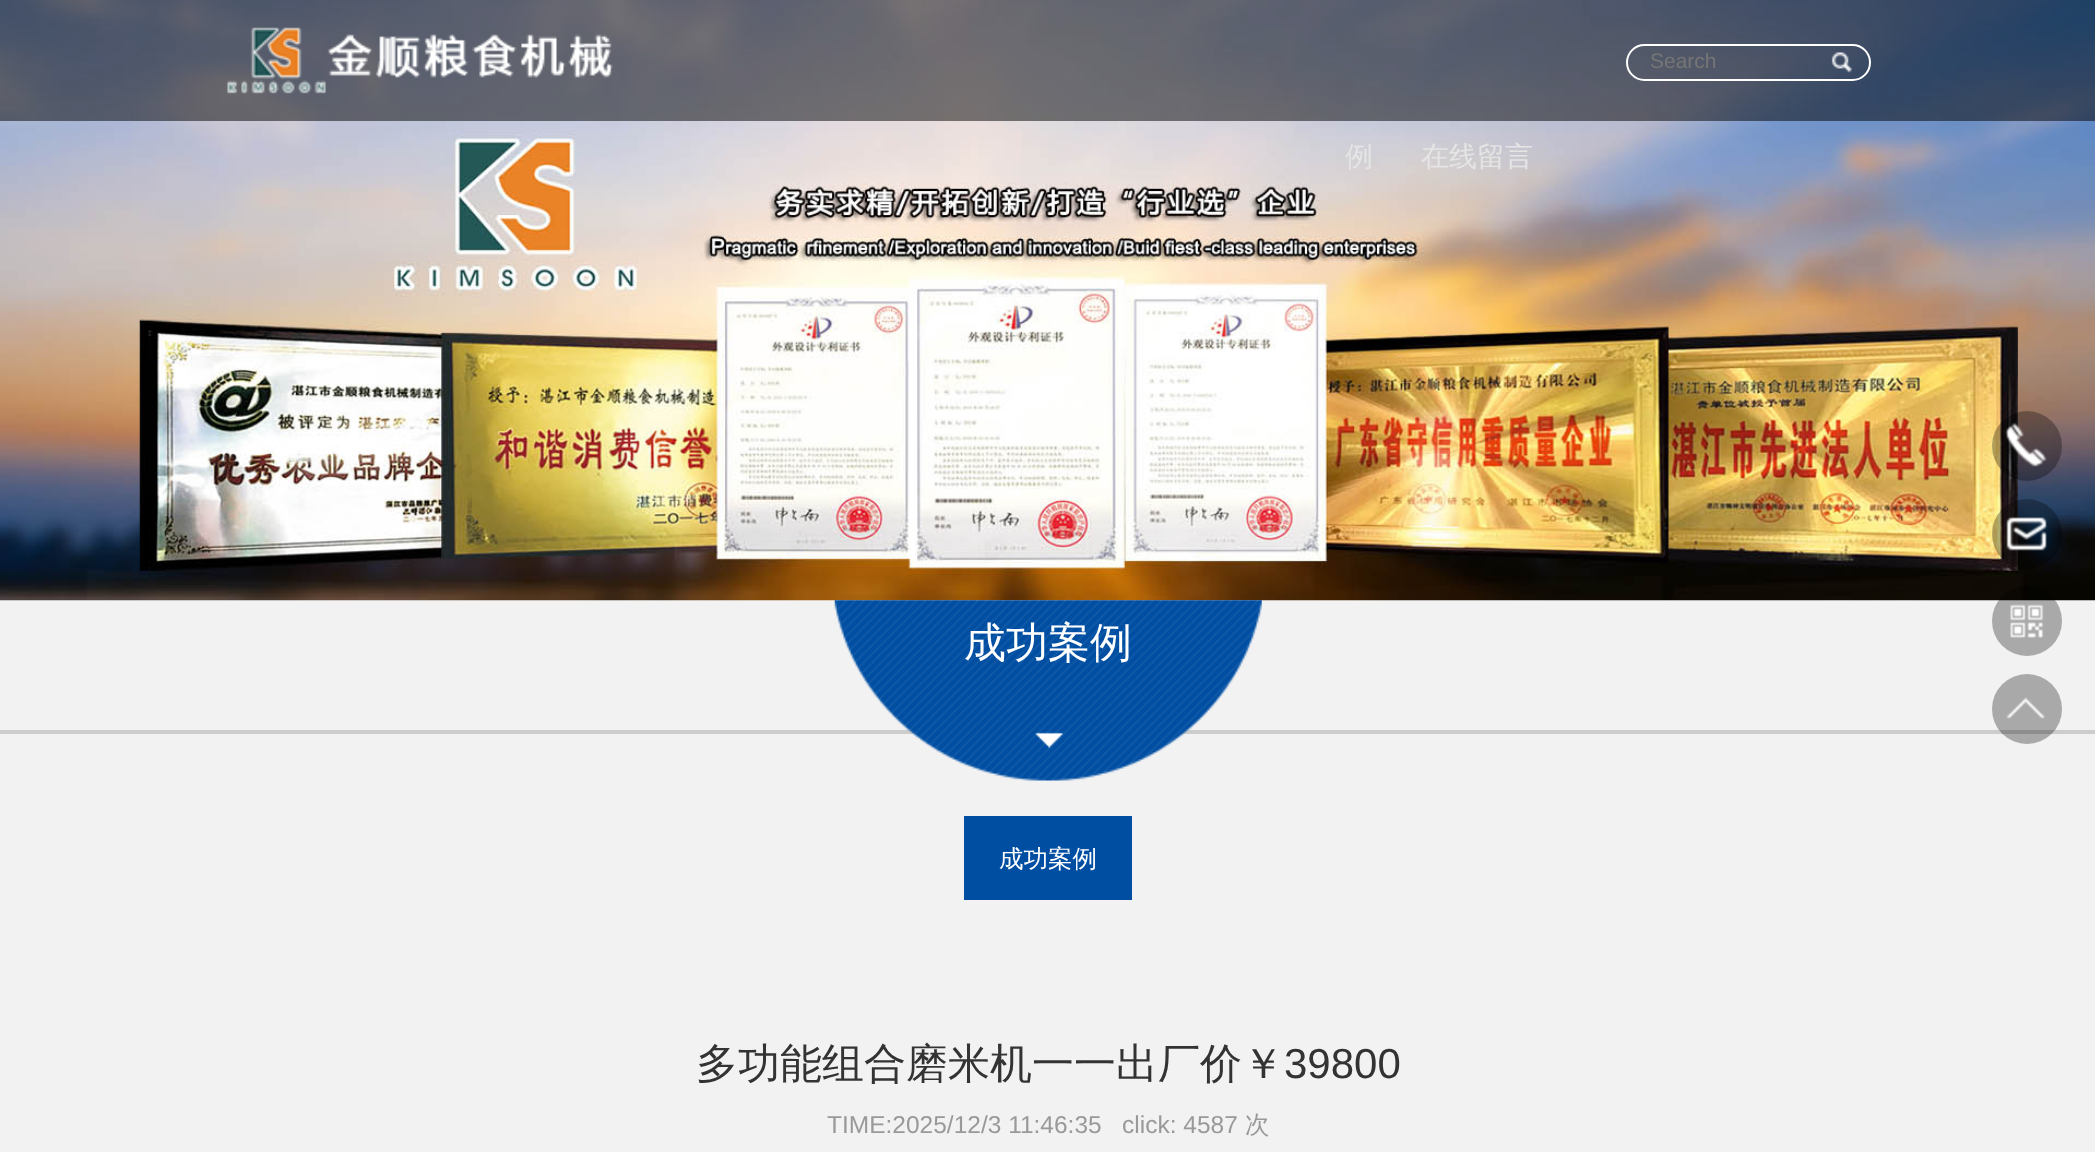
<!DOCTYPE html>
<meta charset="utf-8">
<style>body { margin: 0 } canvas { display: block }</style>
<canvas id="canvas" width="2095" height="1152"></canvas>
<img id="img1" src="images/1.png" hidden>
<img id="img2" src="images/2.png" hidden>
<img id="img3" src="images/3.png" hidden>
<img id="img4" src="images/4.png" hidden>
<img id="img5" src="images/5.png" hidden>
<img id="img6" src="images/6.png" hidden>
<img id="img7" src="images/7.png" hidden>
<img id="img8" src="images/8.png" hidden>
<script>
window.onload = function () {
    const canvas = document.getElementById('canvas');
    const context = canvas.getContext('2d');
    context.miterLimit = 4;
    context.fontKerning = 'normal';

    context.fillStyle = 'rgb(242, 242, 242)';
    context.fillRect(0, 0, 2095, 1152);
    context.drawImage(document.getElementById('img1'), 0, 0, 2095, 601);
    context.fillStyle = 'rgba(0, 0, 0, 0.5)';
    context.fillRect(0, 0, 2095, 121);
    context.drawImage(document.getElementById('img2'), 227, 27, 386, 67);
    context.beginPath();
    context.roundRect(1627, 45, 243, 35, 17.5);
    context.strokeStyle = 'rgb(255, 255, 255)';
    context.lineWidth = 2;
    context.stroke();
    context.drawImage(document.getElementById('img3'), 1831, 52, 21, 21);
    context.fillStyle = 'rgb(204, 204, 204)';
    context.fillRect(0, 730, 2095, 4);
    context.drawImage(document.getElementById('img4'), 834, 600, 428, 181);
    context.fillStyle = 'rgba(0, 0, 0, 0.3)';
    context.beginPath();
    context.arc(2027, 446, 35, 0, 2 * Math.PI);
    context.fill();
    context.drawImage(document.getElementById('img5'), 2005, 422, 42, 45);
    context.beginPath();
    context.arc(2027, 534, 35, 0, 2 * Math.PI);
    context.fill();
    context.drawImage(document.getElementById('img6'), 2006, 517, 41, 34);
    context.beginPath();
    context.arc(2027, 621, 35, 0, 2 * Math.PI);
    context.fill();
    context.drawImage(document.getElementById('img7'), 2010, 604, 34, 34);
    context.beginPath();
    context.arc(2027, 709, 35, 0, 2 * Math.PI);
    context.fill();
    context.drawImage(document.getElementById('img8'), 2006, 697, 39, 22);
    context.fillStyle = 'rgb(0, 78, 162)';
    context.fillRect(964, 816, 168, 84);
    context.font = '21px Liberation Sans';
    context.fillStyle = 'rgb(117, 117, 117)';
    context.fillText('Search', 1650, 68);
    context.font = '500 28px WenQuanYi Zen Hei';
    context.fillStyle = 'rgb(229, 229, 229)';
    context.fillText('例', 1345, 166);
    context.fillText('在线留言', 1421, 166);
    context.font = '500 42px WenQuanYi Zen Hei';
    context.fillStyle = 'rgb(255, 255, 255)';
    context.fillText('成功案例', 964, 657);
    context.font = '500 24.5px WenQuanYi Zen Hei';
    context.fillText('成功案例', 999, 867);
    context.font = '500 42px WenQuanYi Zen Hei';
    context.fillStyle = 'rgb(51, 51, 51)';
    context.fillText('多功能组合磨米机一一出厂价￥', 696, 1078);
    context.font = '42px Liberation Sans';
    context.fillText('39800', 1284, 1078);
    context.font = '24.5px Liberation Sans';
    context.fillStyle = 'rgb(153, 153, 153)';
    context.fillText('TIME:2025/12/3 11:46:35   click: 4587', 827, 1133);
    context.font = '500 24.5px WenQuanYi Zen Hei';
    context.fillText('次', 1245, 1133);
};
</script>
